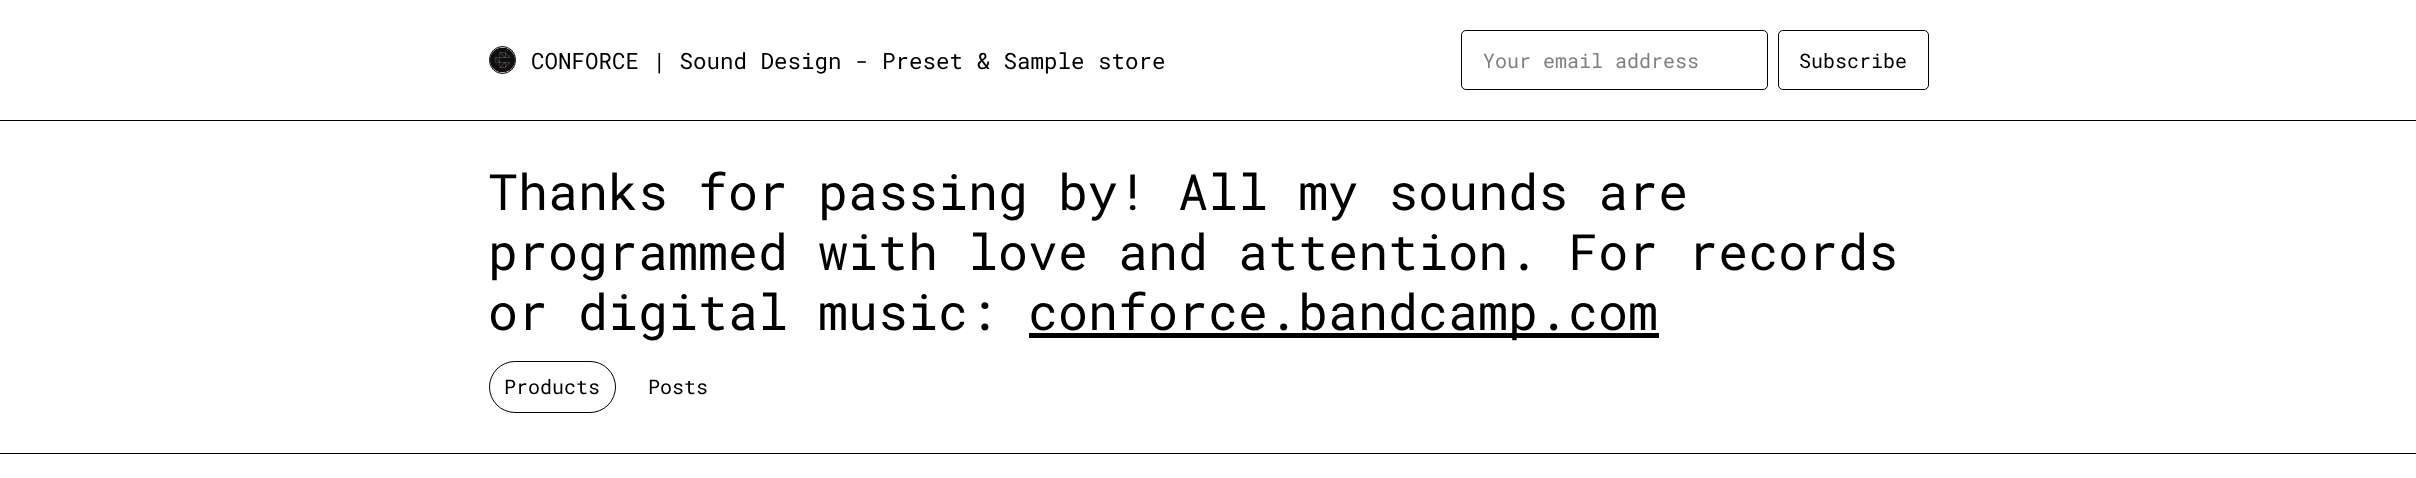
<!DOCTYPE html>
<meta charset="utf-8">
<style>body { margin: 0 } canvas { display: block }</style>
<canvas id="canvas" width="2416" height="478"></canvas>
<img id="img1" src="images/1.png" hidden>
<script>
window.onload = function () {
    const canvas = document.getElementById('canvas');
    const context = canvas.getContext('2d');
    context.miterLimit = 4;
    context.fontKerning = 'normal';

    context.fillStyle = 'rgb(255, 255, 255)';
    context.fillRect(0, 0, 2416, 478);
    context.fillStyle = 'rgb(0, 0, 0)';
    context.fillRect(0, 120, 2416, 1);
    context.beginPath();
    context.roundRect(489.5, 46.5, 26, 27, 13);
    context.strokeStyle = 'rgb(0, 0, 0)';
    context.stroke();
    context.drawImage(document.getElementById('img1'), 490, 47, 25, 26);
    context.beginPath();
    context.roundRect(1461.5, 30.5, 306, 59, 4.5);
    context.stroke();
    context.beginPath();
    context.roundRect(1778.5, 30.5, 150, 59, 4.5);
    context.stroke();
    context.fillRect(0, 453, 2416, 1);
    context.fillRect(1029, 333, 630, 5);
    context.beginPath();
    context.roundRect(489.5, 361.5, 126, 51, 25.5);
    context.stroke();
    context.font = '22.5px Roboto Mono';
    context.fillText('CONFORCE | Sound Design - Preset & Sample store', 531, 69);
    context.font = '20px Roboto Mono';
    context.fillStyle = 'rgb(128, 128, 128)';
    context.fillText('Your email address', 1483, 68);
    context.fillStyle = 'rgb(0, 0, 0)';
    context.fillText('Subscribe', 1799, 68);
    context.font = '50px Roboto Mono';
    context.fillText('Thanks for passing by! All my sounds are', 488, 210);
    context.fillText('programmed with love and attention. For records', 488, 270);
    context.fillText('or digital music:', 488, 330);
    context.fillText('conforce.bandcamp.com', 1028, 330);
    context.font = '20px Roboto Mono';
    context.fillText('Products', 504, 394);
    context.fillText('Posts', 648, 394);
};
</script>
